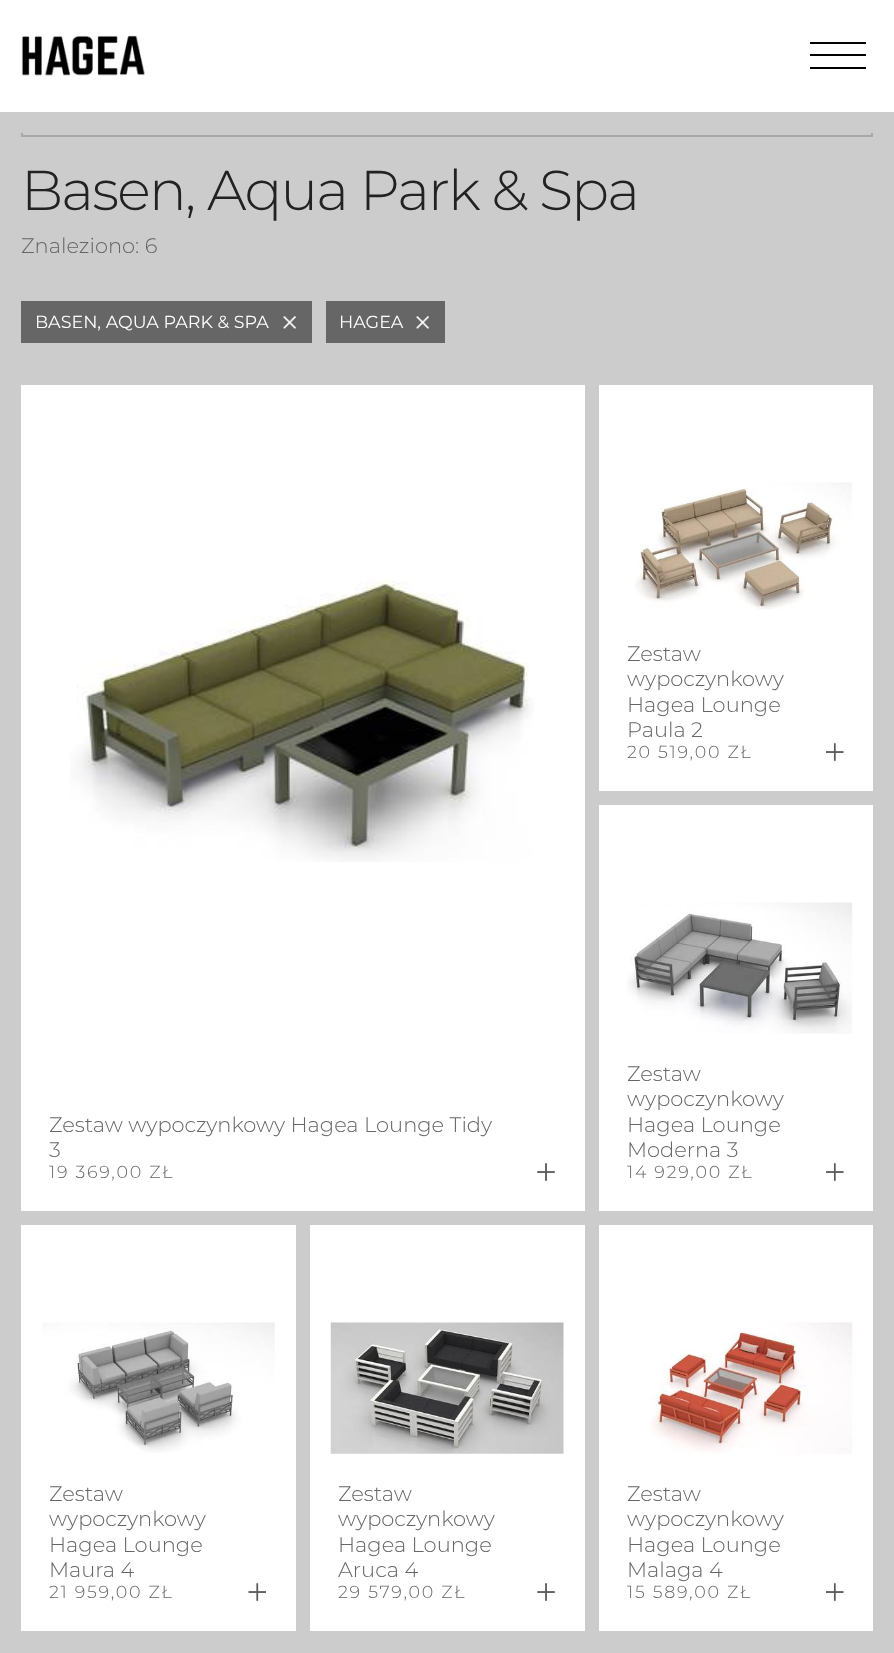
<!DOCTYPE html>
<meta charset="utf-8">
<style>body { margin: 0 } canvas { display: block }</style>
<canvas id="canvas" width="894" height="1653"></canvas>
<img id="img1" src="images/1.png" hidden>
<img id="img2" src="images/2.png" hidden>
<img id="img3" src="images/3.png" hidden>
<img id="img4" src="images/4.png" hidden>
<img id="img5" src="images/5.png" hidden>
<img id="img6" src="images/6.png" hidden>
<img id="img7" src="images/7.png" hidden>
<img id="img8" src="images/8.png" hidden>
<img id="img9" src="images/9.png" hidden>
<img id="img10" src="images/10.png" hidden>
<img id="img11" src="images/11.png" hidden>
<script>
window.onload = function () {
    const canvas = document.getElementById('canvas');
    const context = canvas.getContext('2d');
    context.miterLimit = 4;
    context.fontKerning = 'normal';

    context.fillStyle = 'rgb(204, 204, 204)';
    context.fillRect(0, 0, 894, 1653);
    context.strokeStyle = 'rgb(168, 168, 168)';
    context.lineWidth = 2;
    context.strokeRect(22, 92, 850, 44);
    context.fillStyle = 'rgb(255, 255, 255)';
    context.fillRect(0, 0, 894, 112);
    context.fillStyle = 'rgb(204, 204, 204)';
    context.fillRect(21, 112, 852, 21);
    context.drawImage(document.getElementById('img1'), 21, 35, 124, 42);
    context.fillStyle = 'rgb(0, 0, 0)';
    context.fillRect(810, 42, 56, 2);
    context.fillRect(810, 54, 56, 2);
    context.fillRect(810, 67, 56, 2);
    context.fillStyle = 'rgb(102, 102, 102)';
    context.fillRect(21, 301, 291, 42);
    context.drawImage(document.getElementById('img2'), 283, 316, 13, 13);
    context.fillRect(326, 301, 119, 42);
    context.drawImage(document.getElementById('img2'), 416, 316, 13, 13);
    context.fillStyle = 'rgb(255, 255, 255)';
    context.fillRect(599, 385, 274, 406);
    context.drawImage(document.getElementById('img3'), 635, 482, 217, 128);
    context.drawImage(document.getElementById('img4'), 826, 743, 18, 18);
    context.fillRect(21, 385, 564, 826);
    context.drawImage(document.getElementById('img5'), 70, 575, 464, 287);
    context.drawImage(document.getElementById('img6'), 537, 1163, 18, 18);
    context.fillRect(599, 805, 274, 406);
    context.drawImage(document.getElementById('img7'), 627, 902, 226, 132);
    context.drawImage(document.getElementById('img4'), 826, 1163, 18, 18);
    context.fillRect(21, 1225, 275, 406);
    context.drawImage(document.getElementById('img8'), 42, 1322, 233, 131);
    context.drawImage(document.getElementById('img9'), 248, 1583, 18, 18);
    context.fillRect(310, 1225, 275, 406);
    context.drawImage(document.getElementById('img10'), 330, 1322, 234, 132);
    context.drawImage(document.getElementById('img6'), 537, 1583, 18, 18);
    context.fillRect(599, 1225, 274, 406);
    context.drawImage(document.getElementById('img11'), 650, 1322, 203, 132);
    context.drawImage(document.getElementById('img4'), 826, 1583, 18, 18);
    context.letterSpacing = '-1.75px';
    context.font = '300 56px Montserrat';
    context.fillStyle = 'rgb(34, 34, 34)';
    context.fillText('Basen, Aqua Park & Spa', 21, 210);
    context.letterSpacing = '0px';
    context.font = '300 21px Montserrat';
    context.fillStyle = 'rgb(102, 102, 102)';
    context.fillText('Znaleziono: 6', 21, 253);
    context.font = '17.5px Montserrat';
    context.fillStyle = 'rgb(255, 255, 255)';
    context.fillText('BASEN, AQUA PARK & SPA', 35, 328);
    context.fillText('HAGEA', 339, 328);
    context.font = '300 21px Montserrat';
    context.fillStyle = 'rgb(102, 102, 102)';
    context.fillText('Zestaw', 627, 661);
    context.fillText('wypoczynkowy', 627, 686);
    context.fillText('Hagea Lounge', 627, 712);
    context.fillText('Paula 2', 627, 737);
    context.letterSpacing = '1.75px';
    context.font = '300 17.5px Montserrat';
    context.fillText('20 519,00 ZŁ', 627, 758);
    context.letterSpacing = '0px';
    context.font = '300 21px Montserrat';
    context.fillText('Zestaw wypoczynkowy Hagea Lounge Tidy', 49, 1132);
    context.fillText('3', 49, 1157);
    context.letterSpacing = '1.75px';
    context.font = '300 17.5px Montserrat';
    context.fillText('19 369,00 ZŁ', 49, 1178);
    context.letterSpacing = '0px';
    context.font = '300 21px Montserrat';
    context.fillText('Zestaw', 627, 1081);
    context.fillText('wypoczynkowy', 627, 1106);
    context.fillText('Hagea Lounge', 627, 1132);
    context.fillText('Moderna 3', 627, 1157);
    context.letterSpacing = '1.75px';
    context.font = '300 17.5px Montserrat';
    context.fillText('14 929,00 ZŁ', 627, 1178);
    context.letterSpacing = '0px';
    context.font = '300 21px Montserrat';
    context.fillText('Zestaw', 49, 1501);
    context.fillText('wypoczynkowy', 49, 1526);
    context.fillText('Hagea Lounge', 49, 1552);
    context.fillText('Maura 4', 49, 1577);
    context.letterSpacing = '1.75px';
    context.font = '300 17.5px Montserrat';
    context.fillText('21 959,00 ZŁ', 49, 1598);
    context.letterSpacing = '0px';
    context.font = '300 21px Montserrat';
    context.fillText('Zestaw', 338, 1501);
    context.fillText('wypoczynkowy', 338, 1526);
    context.fillText('Hagea Lounge', 338, 1552);
    context.fillText('Aruca 4', 338, 1577);
    context.letterSpacing = '1.75px';
    context.font = '300 17.5px Montserrat';
    context.fillText('29 579,00 ZŁ', 338, 1598);
    context.letterSpacing = '0px';
    context.font = '300 21px Montserrat';
    context.fillText('Zestaw', 627, 1501);
    context.fillText('wypoczynkowy', 627, 1526);
    context.fillText('Hagea Lounge', 627, 1552);
    context.fillText('Malaga 4', 627, 1577);
    context.letterSpacing = '1.75px';
    context.font = '300 17.5px Montserrat';
    context.fillText('15 589,00 ZŁ', 627, 1598);
};
</script>
